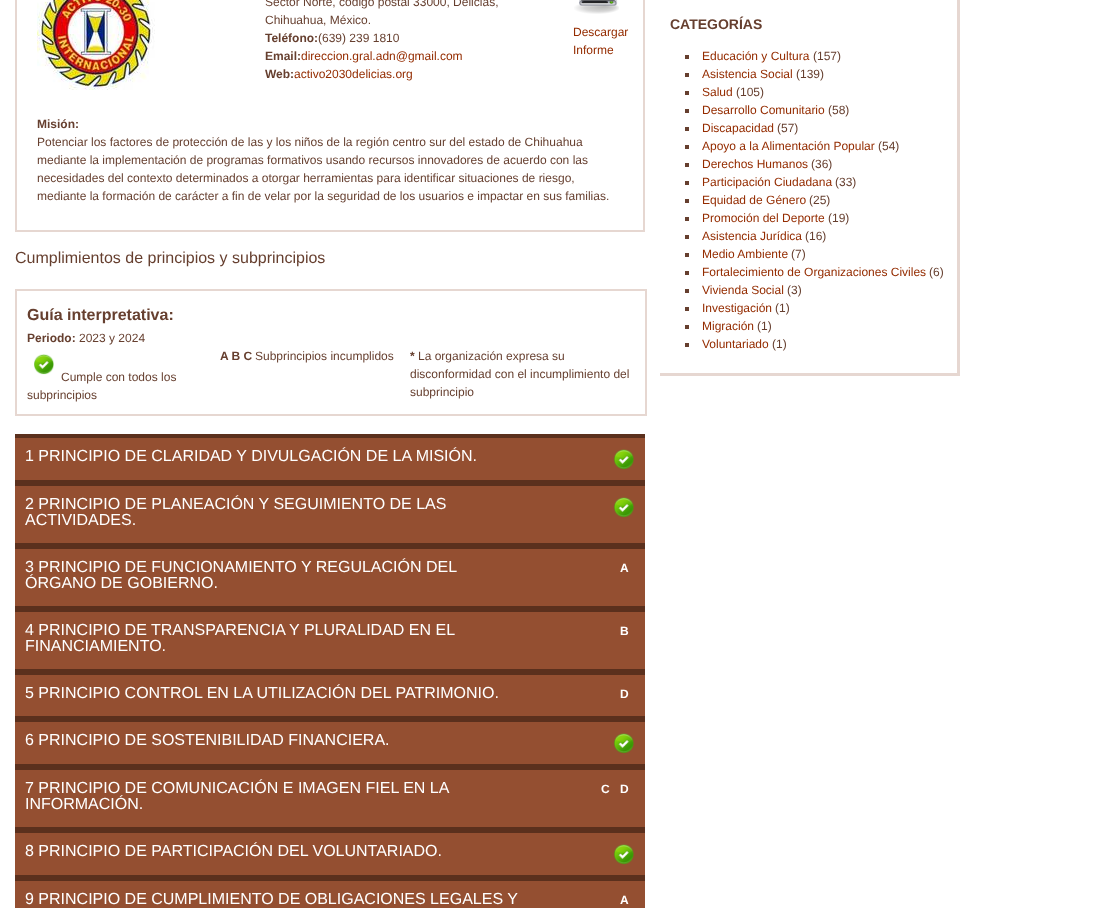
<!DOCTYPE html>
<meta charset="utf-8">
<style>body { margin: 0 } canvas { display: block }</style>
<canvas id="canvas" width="1117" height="908"></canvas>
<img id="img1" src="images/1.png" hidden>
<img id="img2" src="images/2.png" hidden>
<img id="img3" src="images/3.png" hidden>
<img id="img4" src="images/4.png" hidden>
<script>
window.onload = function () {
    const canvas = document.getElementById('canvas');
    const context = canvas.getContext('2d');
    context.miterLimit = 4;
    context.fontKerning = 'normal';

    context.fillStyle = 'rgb(255, 255, 255)';
    context.fillRect(0, 0, 1117, 908);
    context.strokeStyle = 'rgb(230, 215, 209)';
    context.lineWidth = 2;
    context.strokeRect(16, -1, 628, 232);
    context.drawImage(document.getElementById('img1'), 37, 0, 118, 90);
    context.drawImage(document.getElementById('img2'), 574, 0, 45, 14);
    context.strokeRect(16, 290, 630, 125);
    context.drawImage(document.getElementById('img3'), 34, 354, 20, 21);
    context.fillStyle = 'rgb(148, 79, 49)';
    context.fillRect(15, 438, 630, 42);
    context.fillStyle = 'rgb(91, 48, 29)';
    context.fillRect(15, 434, 630, 4);
    context.fillRect(15, 480, 630, 6);
    context.drawImage(document.getElementById('img4'), 614, 449, 20, 21);
    context.fillStyle = 'rgb(148, 79, 49)';
    context.fillRect(15, 486, 630, 57);
    context.fillStyle = 'rgb(91, 48, 29)';
    context.fillRect(15, 543, 630, 6);
    context.drawImage(document.getElementById('img4'), 614, 497, 20, 21);
    context.fillStyle = 'rgb(148, 79, 49)';
    context.fillRect(15, 549, 630, 57);
    context.fillStyle = 'rgb(91, 48, 29)';
    context.fillRect(15, 606, 630, 6);
    context.fillStyle = 'rgb(148, 79, 49)';
    context.fillRect(15, 612, 630, 57);
    context.fillStyle = 'rgb(91, 48, 29)';
    context.fillRect(15, 669, 630, 6);
    context.fillStyle = 'rgb(148, 79, 49)';
    context.fillRect(15, 675, 630, 41);
    context.fillStyle = 'rgb(91, 48, 29)';
    context.fillRect(15, 716, 630, 6);
    context.fillStyle = 'rgb(148, 79, 49)';
    context.fillRect(15, 722, 630, 42);
    context.fillStyle = 'rgb(91, 48, 29)';
    context.fillRect(15, 764, 630, 6);
    context.drawImage(document.getElementById('img4'), 614, 733, 20, 21);
    context.fillStyle = 'rgb(148, 79, 49)';
    context.fillRect(15, 770, 630, 57);
    context.fillStyle = 'rgb(91, 48, 29)';
    context.fillRect(15, 827, 630, 6);
    context.fillStyle = 'rgb(148, 79, 49)';
    context.fillRect(15, 833, 630, 42);
    context.fillStyle = 'rgb(91, 48, 29)';
    context.fillRect(15, 875, 630, 6);
    context.drawImage(document.getElementById('img4'), 614, 844, 20, 21);
    context.fillStyle = 'rgb(148, 79, 49)';
    context.fillRect(15, 881, 630, 27);
    context.fillStyle = 'rgb(230, 215, 209)';
    context.fillRect(957, 0, 3, 376);
    context.fillRect(660, 373, 300, 3);
    context.fillStyle = 'rgb(102, 63, 47)';
    context.fillRect(685, 55, 4, 4);
    context.fillRect(685, 73, 4, 4);
    context.fillRect(685, 91, 4, 4);
    context.fillRect(685, 109, 4, 4);
    context.fillRect(685, 127, 4, 4);
    context.fillRect(685, 145, 4, 4);
    context.fillRect(685, 163, 4, 4);
    context.fillRect(685, 181, 4, 4);
    context.fillRect(685, 199, 4, 4);
    context.fillRect(685, 217, 4, 4);
    context.fillRect(685, 235, 4, 4);
    context.fillRect(685, 253, 4, 4);
    context.fillRect(685, 271, 4, 4);
    context.fillRect(685, 289, 4, 4);
    context.fillRect(685, 307, 4, 4);
    context.fillRect(685, 325, 4, 4);
    context.fillRect(685, 343, 4, 4);
    context.font = '12px Liberation Sans';
    context.fillText('Sector Norte, código postal 33000, Delicias,', 265, 6);
    context.fillText('Chihuahua, México.', 265, 24);
    context.font = 'bold 12px Liberation Sans';
    context.fillText('Teléfono:', 265, 42);
    context.font = '12px Liberation Sans';
    context.fillText('(639) 239 1810', 318, 42);
    context.font = 'bold 12px Liberation Sans';
    context.fillText('Email:', 265, 60);
    context.font = '12px Liberation Sans';
    context.fillStyle = 'rgb(148, 44, 0)';
    context.fillText('direccion.gral.adn@gmail.com', 301, 60);
    context.font = 'bold 12px Liberation Sans';
    context.fillStyle = 'rgb(102, 63, 47)';
    context.fillText('Web:', 265, 78);
    context.font = '12px Liberation Sans';
    context.fillStyle = 'rgb(148, 44, 0)';
    context.fillText('activo2030delicias.org', 294, 78);
    context.fillText('Descargar', 573, 36);
    context.fillText('Informe', 573, 54);
    context.font = 'bold 12px Liberation Sans';
    context.fillStyle = 'rgb(102, 63, 47)';
    context.fillText('Misión:', 37, 128);
    context.font = '12px Liberation Sans';
    context.fillText('Potenciar los factores de protección de las y los niños de la región centro sur del estado de Chihuahua', 37, 146);
    context.fillText('mediante la implementación de programas formativos usando recursos innovadores de acuerdo con las', 37, 164);
    context.fillText('necesidades del contexto determinados a otorgar herramientas para identificar situaciones de riesgo,', 37, 182);
    context.fillText('mediante la formación de carácter a fin de velar por la seguridad de los usuarios e impactar en sus familias.', 37, 200);
    context.font = '16px Liberation Sans';
    context.fillText('Cumplimientos de principios y subprincipios', 15, 263);
    context.font = 'bold 16px Liberation Sans';
    context.fillText('Guía interpretativa:', 27, 320);
    context.font = 'bold 12px Liberation Sans';
    context.fillText('Periodo:', 27, 342);
    context.font = '12px Liberation Sans';
    context.fillText('2023 y 2024', 79, 342);
    context.fillText('Cumple con todos los', 61, 381);
    context.fillText('subprincipios', 27, 399);
    context.font = 'bold 12px Liberation Sans';
    context.fillText('A B C', 220, 360);
    context.font = '12px Liberation Sans';
    context.fillText('Subprincipios incumplidos', 255, 360);
    context.font = 'bold 12px Liberation Sans';
    context.fillText('*', 410, 360);
    context.font = '12px Liberation Sans';
    context.fillText('La organización expresa su', 418, 360);
    context.fillText('disconformidad con el incumplimiento del', 410, 378);
    context.fillText('subprincipio', 410, 396);
    context.font = '16px Liberation Sans';
    context.fillStyle = 'rgb(255, 255, 255)';
    context.fillText('1 PRINCIPIO DE CLARIDAD Y DIVULGACIÓN DE LA MISIÓN.', 25, 461);
    context.fillText('2 PRINCIPIO DE PLANEACIÓN Y SEGUIMIENTO DE LAS', 25, 509);
    context.fillText('ACTIVIDADES.', 25, 525);
    context.fillText('3 PRINCIPIO DE FUNCIONAMIENTO Y REGULACIÓN DEL', 25, 572);
    context.fillText('ÓRGANO DE GOBIERNO.', 25, 588);
    context.font = 'bold 12px Liberation Sans';
    context.fillText('A', 620, 572);
    context.font = '16px Liberation Sans';
    context.fillText('4 PRINCIPIO DE TRANSPARENCIA Y PLURALIDAD EN EL', 25, 635);
    context.fillText('FINANCIAMIENTO.', 25, 651);
    context.font = 'bold 12px Liberation Sans';
    context.fillText('B', 620, 635);
    context.font = '16px Liberation Sans';
    context.fillText('5 PRINCIPIO CONTROL EN LA UTILIZACIÓN DEL PATRIMONIO.', 25, 698);
    context.font = 'bold 12px Liberation Sans';
    context.fillText('D', 620, 698);
    context.font = '16px Liberation Sans';
    context.fillText('6 PRINCIPIO DE SOSTENIBILIDAD FINANCIERA.', 25, 745);
    context.fillText('7 PRINCIPIO DE COMUNICACIÓN E IMAGEN FIEL EN LA', 25, 793);
    context.fillText('INFORMACIÓN.', 25, 809);
    context.font = 'bold 12px Liberation Sans';
    context.fillText('C', 601, 793);
    context.fillText('D', 620, 793);
    context.font = '16px Liberation Sans';
    context.fillText('8 PRINCIPIO DE PARTICIPACIÓN DEL VOLUNTARIADO.', 25, 856);
    context.fillText('9 PRINCIPIO DE CUMPLIMIENTO DE OBLIGACIONES LEGALES Y', 25, 904);
    context.font = 'bold 12px Liberation Sans';
    context.fillText('A', 620, 904);
    context.font = 'bold 14px Liberation Sans';
    context.fillStyle = 'rgb(102, 63, 47)';
    context.fillText('CATEGORÍAS', 670, 29);
    context.font = '12px Liberation Sans';
    context.fillStyle = 'rgb(148, 44, 0)';
    context.fillText('Educación y Cultura', 702, 60);
    context.fillStyle = 'rgb(102, 63, 47)';
    context.fillText('(157)', 813, 60);
    context.fillStyle = 'rgb(148, 44, 0)';
    context.fillText('Asistencia Social', 702, 78);
    context.fillStyle = 'rgb(102, 63, 47)';
    context.fillText('(139)', 796, 78);
    context.fillStyle = 'rgb(148, 44, 0)';
    context.fillText('Salud', 702, 96);
    context.fillStyle = 'rgb(102, 63, 47)';
    context.fillText('(105)', 736, 96);
    context.fillStyle = 'rgb(148, 44, 0)';
    context.fillText('Desarrollo Comunitario', 702, 114);
    context.fillStyle = 'rgb(102, 63, 47)';
    context.fillText('(58)', 828, 114);
    context.fillStyle = 'rgb(148, 44, 0)';
    context.fillText('Discapacidad', 702, 132);
    context.fillStyle = 'rgb(102, 63, 47)';
    context.fillText('(57)', 777, 132);
    context.fillStyle = 'rgb(148, 44, 0)';
    context.fillText('Apoyo a la Alimentación Popular', 702, 150);
    context.fillStyle = 'rgb(102, 63, 47)';
    context.fillText('(54)', 878, 150);
    context.fillStyle = 'rgb(148, 44, 0)';
    context.fillText('Derechos Humanos', 702, 168);
    context.fillStyle = 'rgb(102, 63, 47)';
    context.fillText('(36)', 811, 168);
    context.fillStyle = 'rgb(148, 44, 0)';
    context.fillText('Participación Ciudadana', 702, 186);
    context.fillStyle = 'rgb(102, 63, 47)';
    context.fillText('(33)', 835, 186);
    context.fillStyle = 'rgb(148, 44, 0)';
    context.fillText('Equidad de Género', 702, 204);
    context.fillStyle = 'rgb(102, 63, 47)';
    context.fillText('(25)', 809, 204);
    context.fillStyle = 'rgb(148, 44, 0)';
    context.fillText('Promoción del Deporte', 702, 222);
    context.fillStyle = 'rgb(102, 63, 47)';
    context.fillText('(19)', 828, 222);
    context.fillStyle = 'rgb(148, 44, 0)';
    context.fillText('Asistencia Jurídica', 702, 240);
    context.fillStyle = 'rgb(102, 63, 47)';
    context.fillText('(16)', 805, 240);
    context.fillStyle = 'rgb(148, 44, 0)';
    context.fillText('Medio Ambiente', 702, 258);
    context.fillStyle = 'rgb(102, 63, 47)';
    context.fillText('(7)', 791, 258);
    context.fillStyle = 'rgb(148, 44, 0)';
    context.fillText('Fortalecimiento de Organizaciones Civiles', 702, 276);
    context.fillStyle = 'rgb(102, 63, 47)';
    context.fillText('(6)', 929, 276);
    context.fillStyle = 'rgb(148, 44, 0)';
    context.fillText('Vivienda Social', 702, 294);
    context.fillStyle = 'rgb(102, 63, 47)';
    context.fillText('(3)', 787, 294);
    context.fillStyle = 'rgb(148, 44, 0)';
    context.fillText('Investigación', 702, 312);
    context.fillStyle = 'rgb(102, 63, 47)';
    context.fillText('(1)', 775, 312);
    context.fillStyle = 'rgb(148, 44, 0)';
    context.fillText('Migración', 702, 330);
    context.fillStyle = 'rgb(102, 63, 47)';
    context.fillText('(1)', 757, 330);
    context.fillStyle = 'rgb(148, 44, 0)';
    context.fillText('Voluntariado', 702, 348);
    context.fillStyle = 'rgb(102, 63, 47)';
    context.fillText('(1)', 772, 348);
};
</script>
